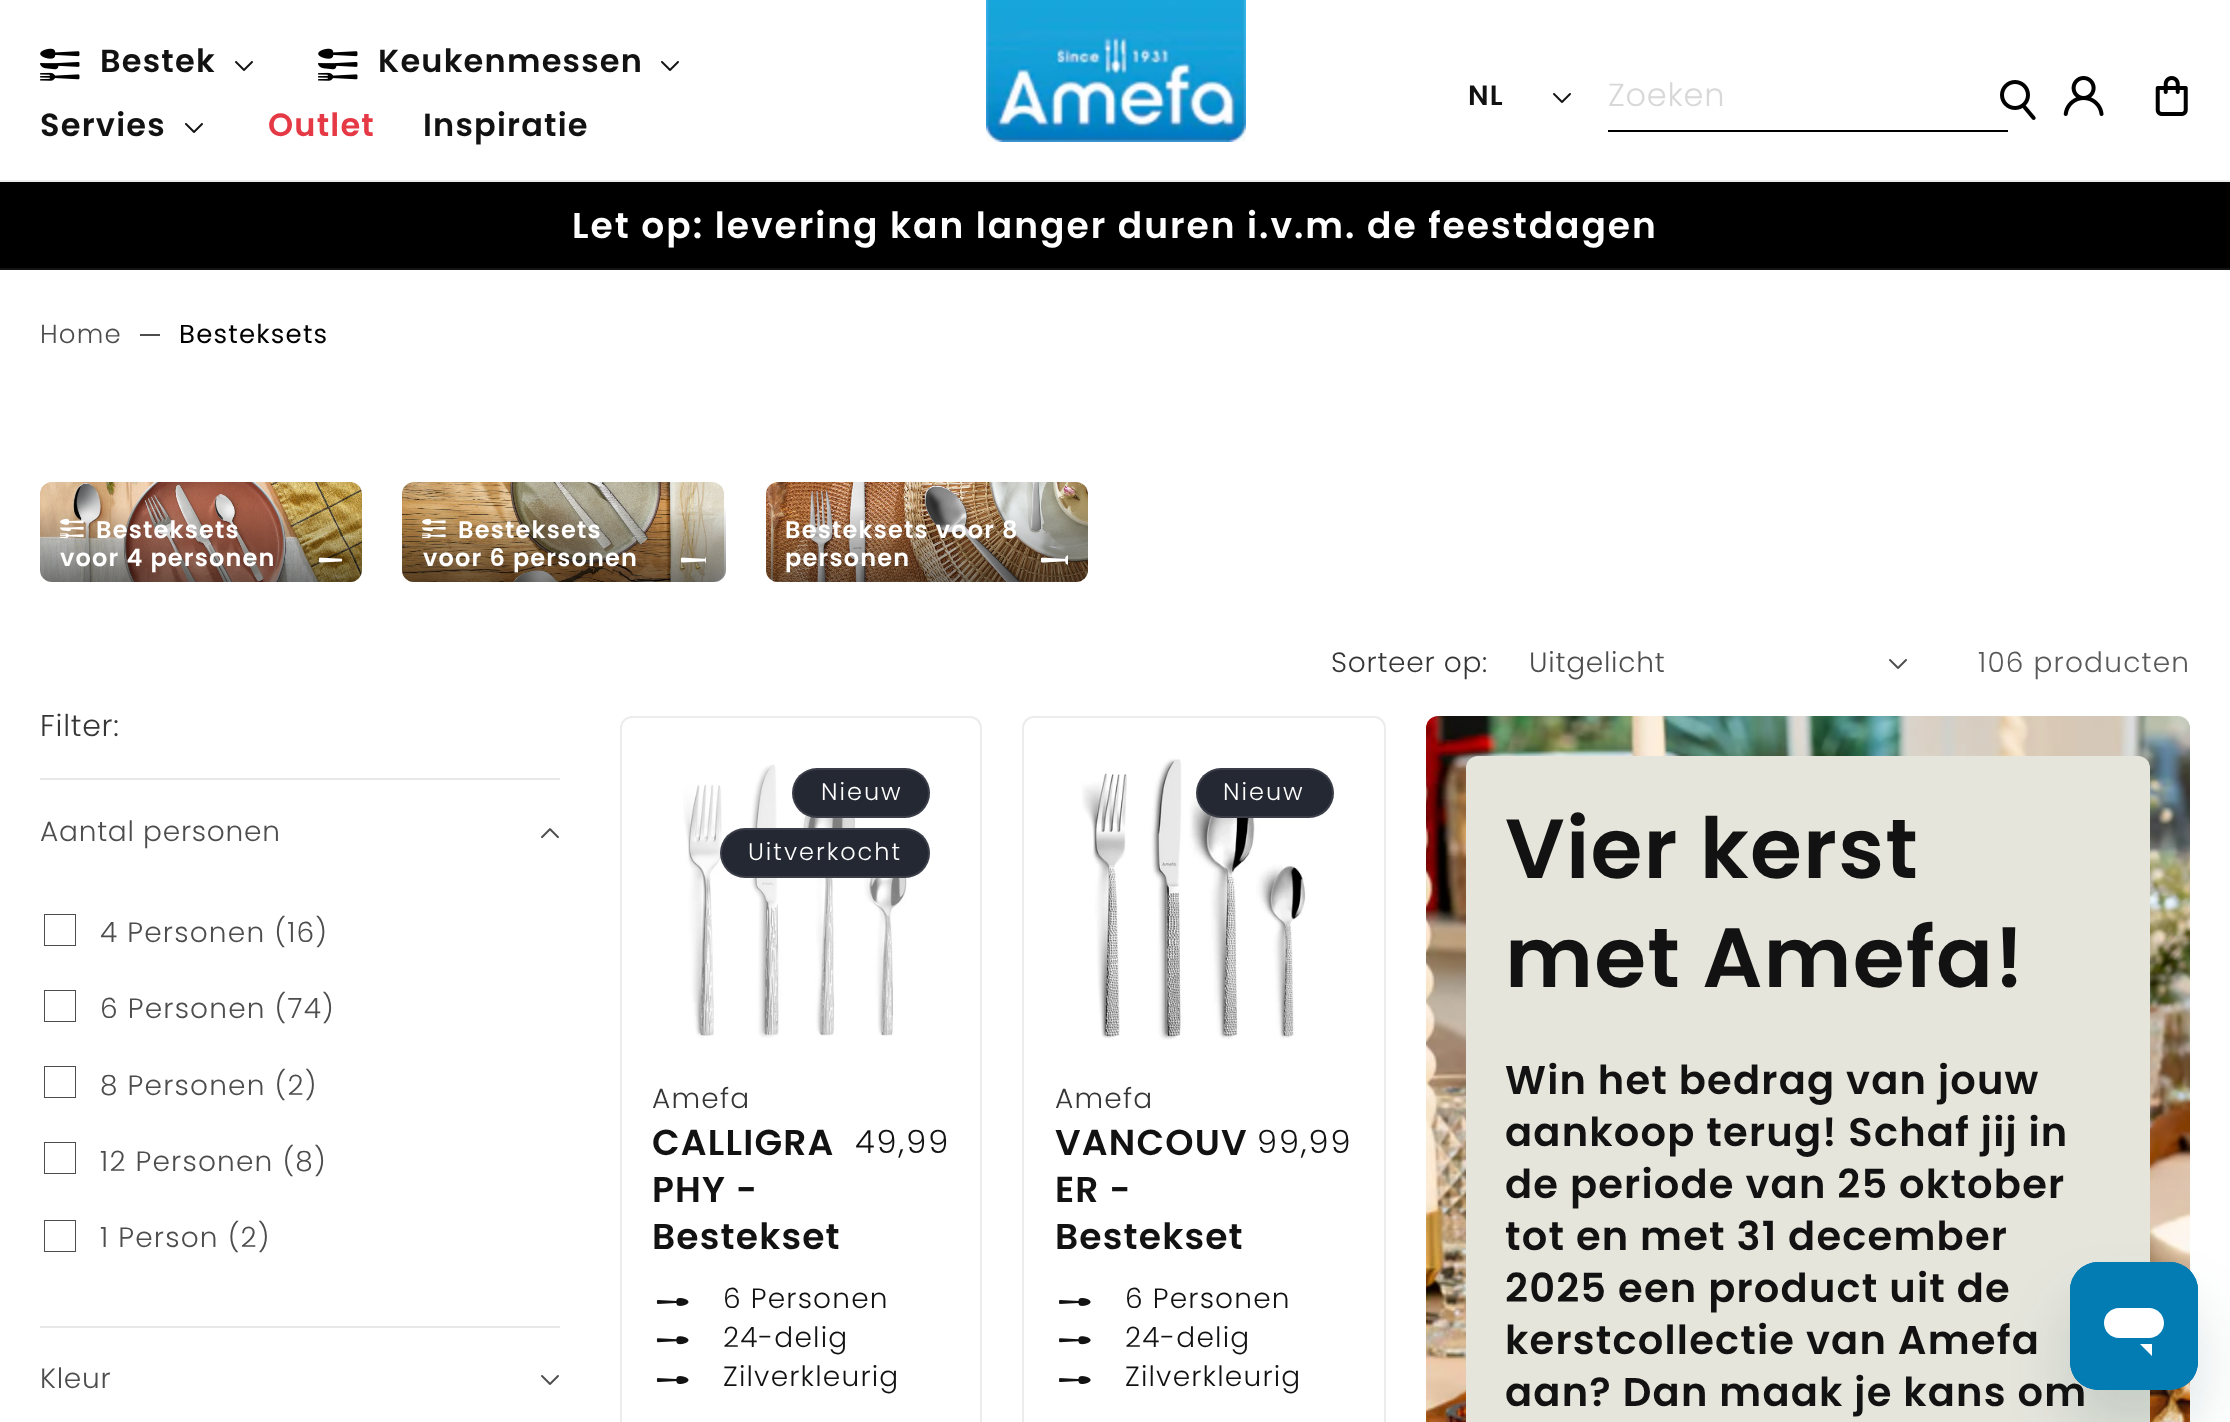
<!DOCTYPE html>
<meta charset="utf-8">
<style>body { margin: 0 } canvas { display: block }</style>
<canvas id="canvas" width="2230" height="1422"></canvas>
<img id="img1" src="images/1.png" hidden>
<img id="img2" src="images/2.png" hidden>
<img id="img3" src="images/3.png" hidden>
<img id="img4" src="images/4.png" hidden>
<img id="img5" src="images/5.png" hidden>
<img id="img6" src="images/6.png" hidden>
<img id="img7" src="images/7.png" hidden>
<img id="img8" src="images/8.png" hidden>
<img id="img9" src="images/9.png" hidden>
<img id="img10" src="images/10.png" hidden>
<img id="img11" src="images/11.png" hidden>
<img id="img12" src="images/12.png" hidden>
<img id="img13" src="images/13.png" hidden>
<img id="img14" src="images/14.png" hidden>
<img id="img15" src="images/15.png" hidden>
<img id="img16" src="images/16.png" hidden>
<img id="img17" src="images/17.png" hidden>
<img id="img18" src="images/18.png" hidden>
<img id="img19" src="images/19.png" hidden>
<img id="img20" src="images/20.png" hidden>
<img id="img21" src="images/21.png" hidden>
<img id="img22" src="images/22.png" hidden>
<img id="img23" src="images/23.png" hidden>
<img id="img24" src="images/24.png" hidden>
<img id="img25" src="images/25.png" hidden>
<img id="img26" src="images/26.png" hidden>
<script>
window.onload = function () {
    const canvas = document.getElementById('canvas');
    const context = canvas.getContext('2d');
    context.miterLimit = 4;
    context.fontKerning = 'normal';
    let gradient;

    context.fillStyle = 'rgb(255, 255, 255)';
    context.fillRect(0, 0, 2230, 1422);
    context.fillStyle = 'rgb(236, 236, 236)';
    context.fillRect(0, 180, 2230, 2);
    context.drawImage(document.getElementById('img1'), 40, 48, 40, 33);
    context.drawImage(document.getElementById('img2'), 235, 61, 18, 10);
    context.drawImage(document.getElementById('img1'), 318, 48, 40, 33);
    context.drawImage(document.getElementById('img2'), 661, 61, 18, 10);
    context.drawImage(document.getElementById('img2'), 185, 123, 18, 10);
    context.drawImage(document.getElementById('img3'), 986, 0, 260, 142);
    context.drawImage(document.getElementById('img2'), 1553, 93, 18, 10);
    context.fillStyle = 'rgb(0, 0, 0)';
    context.fillRect(1608, 130, 400, 2);
    context.drawImage(document.getElementById('img4'), 2000, 80, 36, 40);
    context.drawImage(document.getElementById('img5'), 2063, 76, 41, 40);
    context.drawImage(document.getElementById('img6'), 2155, 76, 33, 40);
    context.fillRect(0, 182, 2230, 86);
    context.fillStyle = 'rgb(20, 20, 20)';
    context.fillRect(0, 268, 2230, 2);
    context.fillStyle = 'rgb(77, 77, 77)';
    context.fillRect(140, 334, 20, 2);
    context.drawImage(document.getElementById('img7'), 40, 482, 322, 100);
    gradient = context.createLinearGradient(201, 582, 201, 506);
    gradient.addColorStop(0, 'rgba(0, 0, 0, 0.5)');
    gradient.addColorStop(1, 'rgba(0, 0, 0, 0)');
    context.fillStyle = gradient;
    context.beginPath();
    context.roundRect(40, 506, 322, 76, [0, 0, 12, 12]);
    context.fill();
    context.drawImage(document.getElementById('img8'), 60, 518, 24, 20);
    context.drawImage(document.getElementById('img9'), 318, 557, 24, 6);
    context.drawImage(document.getElementById('img10'), 402, 482, 322, 100);
    gradient = context.createLinearGradient(564, 582, 564, 506);
    gradient.addColorStop(0, 'rgba(0, 0, 0, 0.5)');
    gradient.addColorStop(1, 'rgba(0, 0, 0, 0)');
    context.fillStyle = gradient;
    context.beginPath();
    context.roundRect(402, 506, 324, 76, [0, 0, 12, 12]);
    context.fill();
    context.drawImage(document.getElementById('img11'), 422, 518, 24, 21);
    context.drawImage(document.getElementById('img12'), 680, 556, 26, 8);
    context.drawImage(document.getElementById('img13'), 766, 482, 322, 100);
    gradient = context.createLinearGradient(927, 582, 927, 506);
    gradient.addColorStop(0, 'rgba(0, 0, 0, 0.5)');
    gradient.addColorStop(1, 'rgba(0, 0, 0, 0)');
    context.fillStyle = gradient;
    context.beginPath();
    context.roundRect(766, 506, 322, 76, [0, 0, 12, 12]);
    context.fill();
    context.drawImage(document.getElementById('img14'), 1040, 555, 28, 10);
    context.drawImage(document.getElementById('img15'), 1889, 659, 18, 10);
    context.fillStyle = 'rgb(231, 231, 231)';
    context.fillRect(40, 778, 520, 2);
    context.drawImage(document.getElementById('img16'), 541, 828, 18, 11);
    context.save();
    context.beginPath();
    context.rect(44, 914, 32, 32);
    context.clip();
    context.strokeStyle = 'rgb(77, 77, 77)';
    context.lineWidth = 2;
    context.strokeRect(44, 914, 32, 32);
    context.restore();
    context.save();
    context.beginPath();
    context.rect(44, 990, 32, 32);
    context.clip();
    context.strokeStyle = 'rgb(77, 77, 77)';
    context.lineWidth = 2;
    context.strokeRect(44, 990, 32, 32);
    context.restore();
    context.save();
    context.beginPath();
    context.rect(44, 1066, 32, 32);
    context.clip();
    context.strokeStyle = 'rgb(77, 77, 77)';
    context.lineWidth = 2;
    context.strokeRect(44, 1066, 32, 32);
    context.restore();
    context.save();
    context.beginPath();
    context.rect(44, 1142, 32, 32);
    context.clip();
    context.strokeStyle = 'rgb(77, 77, 77)';
    context.lineWidth = 2;
    context.strokeRect(44, 1142, 32, 32);
    context.restore();
    context.save();
    context.beginPath();
    context.rect(44, 1220, 32, 32);
    context.clip();
    context.strokeStyle = 'rgb(77, 77, 77)';
    context.lineWidth = 2;
    context.strokeRect(44, 1220, 32, 32);
    context.restore();
    context.fillRect(40, 1326, 520, 2);
    context.drawImage(document.getElementById('img15'), 541, 1375, 18, 10);
    context.beginPath();
    context.roundRect(621, 717, 360, 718, 11);
    context.strokeStyle = 'rgb(236, 236, 236)';
    context.lineWidth = 2;
    context.stroke();
    context.drawImage(document.getElementById('img17'), 683, 764, 224, 274);
    context.fillStyle = 'rgb(36, 40, 51)';
    context.beginPath();
    context.roundRect(792, 768, 138, 50, 25);
    context.fill();
    context.beginPath();
    context.roundRect(793, 769, 136, 48, 24);
    context.strokeStyle = 'rgba(255, 255, 255, 0.1)';
    context.stroke();
    context.beginPath();
    context.roundRect(720, 828, 210, 50, 25);
    context.fill();
    context.beginPath();
    context.roundRect(721, 829, 208, 48, 24);
    context.stroke();
    context.drawImage(document.getElementById('img18'), 656, 1298, 33, 8);
    context.drawImage(document.getElementById('img19'), 656, 1336, 33, 9);
    context.drawImage(document.getElementById('img20'), 656, 1376, 33, 8);
    context.beginPath();
    context.roundRect(1023, 717, 362, 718, 11);
    context.strokeStyle = 'rgb(236, 236, 236)';
    context.stroke();
    context.drawImage(document.getElementById('img21'), 1082, 758, 224, 282);
    context.beginPath();
    context.roundRect(1196, 768, 138, 50, 25);
    context.fill();
    context.beginPath();
    context.roundRect(1197, 769, 136, 48, 24);
    context.strokeStyle = 'rgba(255, 255, 255, 0.1)';
    context.stroke();
    context.drawImage(document.getElementById('img22'), 1059, 1298, 32, 8);
    context.drawImage(document.getElementById('img23'), 1059, 1336, 32, 9);
    context.drawImage(document.getElementById('img24'), 1059, 1376, 32, 8);
    context.drawImage(document.getElementById('img25'), 1426, 716, 764, 706);
    context.fillStyle = 'rgb(229, 229, 220)';
    context.beginPath();
    context.roundRect(1466, 756, 684, 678, 12);
    context.fill();
    context.fillStyle = 'rgba(23, 73, 77, 0.15)';
    context.filter = 'blur(30px)';
    context.beginPath();
    context.roundRect(2070, 1302, 128, 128, 28);
    context.fill();
    context.filter = 'none';
    context.letterSpacing = '1.2px';
    context.font = '600 32px Poppins';
    context.fillStyle = 'rgb(18, 18, 18)';
    context.fillText('Bestek', 100, 72);
    context.fillText('Keukenmessen', 378, 72);
    context.fillText('Servies', 40, 136);
    context.fillStyle = 'rgb(230, 57, 70)';
    context.fillText('Outlet', 268, 136);
    context.fillStyle = 'rgb(18, 18, 18)';
    context.fillText('Inspiratie', 423, 136);
    context.font = '600 28px Poppins';
    context.fillText('NL', 1468, 105);
    context.letterSpacing = '0.75px';
    context.font = '300 32px Poppins';
    context.fillStyle = 'rgb(216, 216, 216)';
    context.fillText('Zoeken', 1608, 106);
    context.letterSpacing = '2px';
    context.font = '600 36px Poppins';
    context.fillStyle = 'rgb(255, 255, 255)';
    context.fillText('Let op: levering kan langer duren i.v.m. de feestdagen', 572, 238);
    context.letterSpacing = '1.2px';
    context.font = '300 26px Poppins';
    context.fillStyle = 'rgb(77, 77, 77)';
    context.fillText('Home', 40, 343);
    context.font = '26px Poppins';
    context.fillStyle = 'rgb(0, 0, 0)';
    context.fillText('Besteksets', 179, 343);
    context.font = '600 24px Poppins';
    context.fillStyle = 'rgb(255, 255, 255)';
    context.fillText('Besteksets', 96, 538);
    context.fillText('voor 4 personen', 60, 566);
    context.fillText('Besteksets', 458, 538);
    context.fillText('voor 6 personen', 423, 566);
    context.fillText('Besteksets voor 8', 785, 538);
    context.fillText('personen', 785, 566);
    context.letterSpacing = '0.75px';
    context.font = '300 28px Poppins';
    context.fillStyle = 'rgb(54, 54, 54)';
    context.fillText('Sorteer op:', 1331, 672);
    context.fillStyle = 'rgb(77, 77, 77)';
    context.fillText('Uitgelicht', 1529, 672);
    context.letterSpacing = '1.2px';
    context.fillStyle = 'rgb(89, 89, 89)';
    context.fillText('106 producten', 1978, 672);
    context.letterSpacing = '0.75px';
    context.font = '300 30px Poppins';
    context.fillStyle = 'rgb(54, 54, 54)';
    context.fillText('Filter:', 40, 736);
    context.font = '300 28px Poppins';
    context.fillStyle = 'rgb(77, 77, 77)';
    context.fillText('Aantal personen', 40, 841);
    context.letterSpacing = '1.2px';
    context.fillText('4 Personen (16)', 100, 942);
    context.fillText('6 Personen (74)', 100, 1018);
    context.fillText('8 Personen (2)', 100, 1095);
    context.fillText('12 Personen (8)', 100, 1171);
    context.fillText('1 Person (2)', 100, 1247);
    context.letterSpacing = '0.75px';
    context.fillText('Kleur', 40, 1388);
    context.letterSpacing = '2px';
    context.font = '300 24px Poppins';
    context.fillStyle = 'rgb(255, 255, 255)';
    context.fillText('Nieuw', 821, 800);
    context.fillText('Uitverkocht', 748, 860);
    context.letterSpacing = '1.2px';
    context.font = '300 28px Poppins';
    context.fillStyle = 'rgb(54, 54, 54)';
    context.fillText('Amefa', 652, 1108);
    context.font = '600 36px Poppins';
    context.fillStyle = 'rgb(18, 18, 18)';
    context.fillText('CALLIGRA', 652, 1155);
    context.fillText('PHY -', 652, 1202);
    context.fillText('Bestekset', 652, 1249);
    context.letterSpacing = '2px';
    context.font = '300 32px Poppins';
    context.fillText('49,99', 855, 1153);
    context.letterSpacing = '1.2px';
    context.font = '300 28px Poppins';
    context.fillText('6 Personen', 723, 1308);
    context.fillText('24-delig', 723, 1347);
    context.fillText('Zilverkleurig', 723, 1386);
    context.letterSpacing = '2px';
    context.font = '300 24px Poppins';
    context.fillStyle = 'rgb(255, 255, 255)';
    context.fillText('Nieuw', 1223, 800);
    context.letterSpacing = '1.2px';
    context.font = '300 28px Poppins';
    context.fillStyle = 'rgb(54, 54, 54)';
    context.fillText('Amefa', 1055, 1108);
    context.font = '600 36px Poppins';
    context.fillStyle = 'rgb(18, 18, 18)';
    context.fillText('VANCOUV', 1055, 1155);
    context.fillText('ER -', 1055, 1202);
    context.fillText('Bestekset', 1055, 1249);
    context.letterSpacing = '2px';
    context.font = '300 32px Poppins';
    context.fillText('99,99', 1257, 1153);
    context.letterSpacing = '1.2px';
    context.font = '300 28px Poppins';
    context.fillText('6 Personen', 1125, 1308);
    context.fillText('24-delig', 1125, 1347);
    context.fillText('Zilverkleurig', 1125, 1386);
    context.font = '600 84px Poppins';
    context.fillText('Vier kerst', 1505, 878);
    context.fillText('met Amefa!', 1505, 987);
    context.font = '600 40px Poppins';
    context.fillText('Win het bedrag van jouw', 1505, 1094);
    context.fillText('aankoop terug! Schaf jij in', 1505, 1146);
    context.fillText('de periode van 25 oktober', 1505, 1198);
    context.fillText('tot en met 31 december', 1505, 1250);
    context.fillText('2025 een product uit de', 1505, 1302);
    context.fillText('kerstcollectie van Amefa', 1505, 1354);
    context.fillText('aan? Dan maak je kans om', 1505, 1406);
    context.drawImage(document.getElementById('img26'), 2070, 1262, 128, 128);
};
</script>
